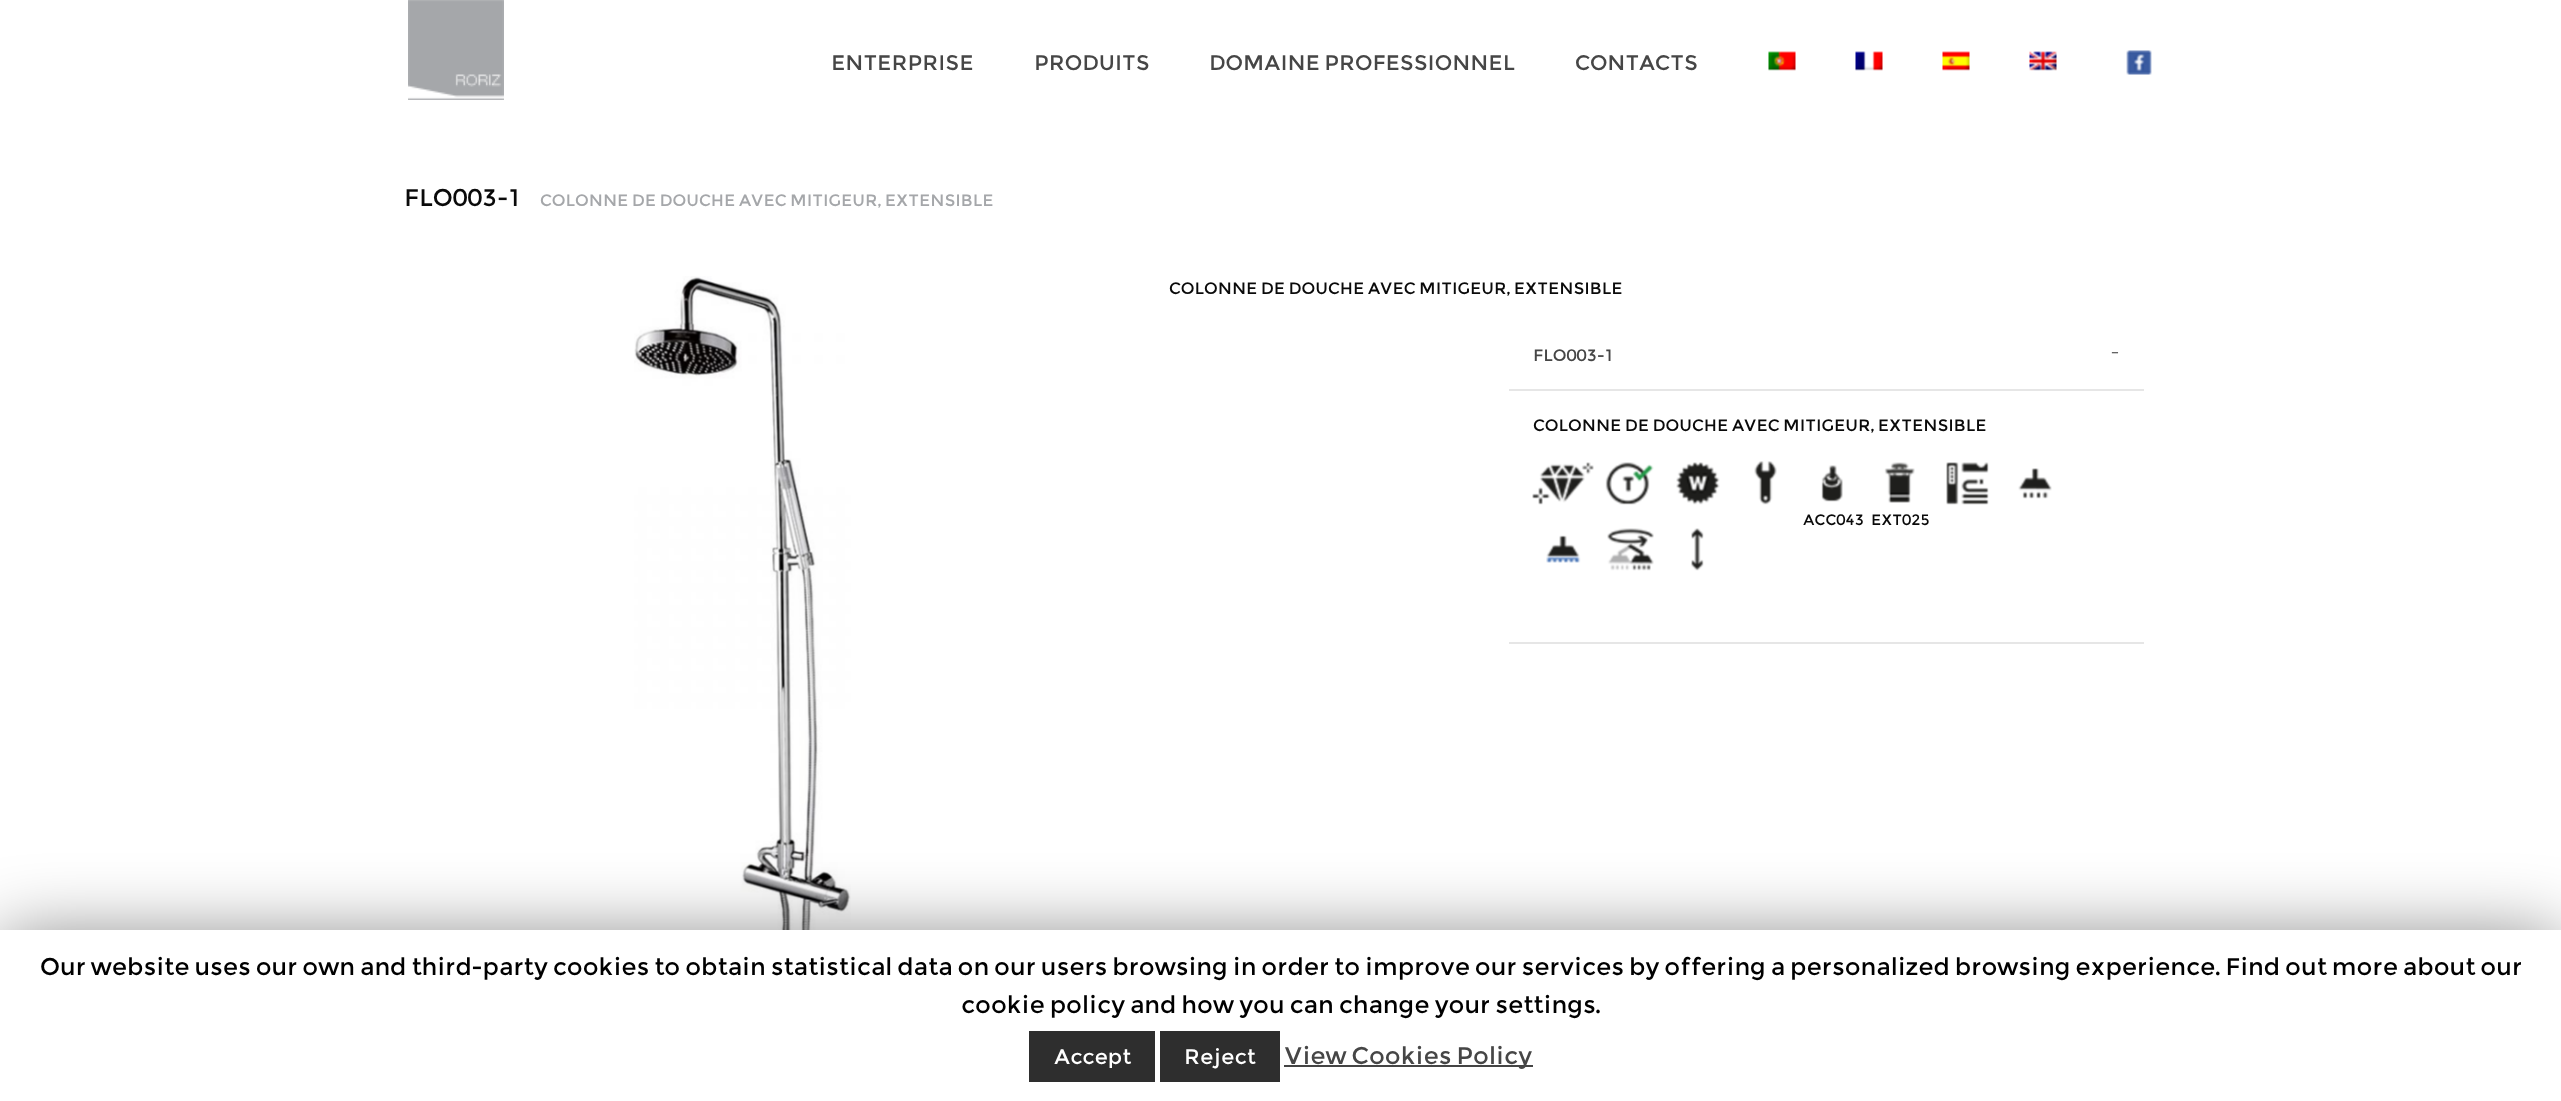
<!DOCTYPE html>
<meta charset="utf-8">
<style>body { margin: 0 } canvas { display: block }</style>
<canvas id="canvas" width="2561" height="1101"></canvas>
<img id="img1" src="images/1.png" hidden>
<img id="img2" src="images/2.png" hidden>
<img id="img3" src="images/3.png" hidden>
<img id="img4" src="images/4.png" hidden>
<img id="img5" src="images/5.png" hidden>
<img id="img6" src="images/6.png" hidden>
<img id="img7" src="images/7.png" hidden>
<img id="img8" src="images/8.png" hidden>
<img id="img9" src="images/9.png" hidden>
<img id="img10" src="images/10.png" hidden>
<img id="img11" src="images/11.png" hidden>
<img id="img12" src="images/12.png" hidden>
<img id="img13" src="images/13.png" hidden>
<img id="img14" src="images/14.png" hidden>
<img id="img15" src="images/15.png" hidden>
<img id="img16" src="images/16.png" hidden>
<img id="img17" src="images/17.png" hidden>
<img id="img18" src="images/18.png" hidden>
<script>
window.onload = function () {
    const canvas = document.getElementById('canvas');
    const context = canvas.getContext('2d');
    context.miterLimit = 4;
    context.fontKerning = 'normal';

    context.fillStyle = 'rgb(255, 255, 255)';
    context.fillRect(0, 0, 2561, 1101);
    context.drawImage(document.getElementById('img1'), 408, 0, 96, 100);
    context.drawImage(document.getElementById('img2'), 1768, 51, 28, 20);
    context.drawImage(document.getElementById('img3'), 1855, 51, 28, 20);
    context.drawImage(document.getElementById('img4'), 1942, 51, 28, 20);
    context.drawImage(document.getElementById('img5'), 2029, 51, 28, 20);
    context.drawImage(document.getElementById('img6'), 2126, 50, 26, 25);
    context.drawImage(document.getElementById('img7'), 634, 276, 217, 654);
    context.fillStyle = 'rgb(230, 230, 230)';
    context.fillRect(1509, 389, 635, 2);
    context.fillRect(1509, 642, 635, 2);
    context.drawImage(document.getElementById('img8'), 1532, 462, 62, 43);
    context.drawImage(document.getElementById('img9'), 1605, 462, 49, 43);
    context.drawImage(document.getElementById('img10'), 1676, 462, 44, 43);
    context.drawImage(document.getElementById('img11'), 1754, 461, 23, 44);
    context.drawImage(document.getElementById('img12'), 1946, 462, 43, 43);
    context.drawImage(document.getElementById('img13'), 2018, 468, 34, 31);
    context.drawImage(document.getElementById('img14'), 1821, 465, 22, 37);
    context.drawImage(document.getElementById('img15'), 1884, 462, 31, 41);
    context.drawImage(document.getElementById('img16'), 1546, 535, 35, 28);
    context.drawImage(document.getElementById('img17'), 1607, 528, 47, 43);
    context.drawImage(document.getElementById('img18'), 1691, 528, 13, 43);
    context.fillStyle = 'rgba(0, 0, 0, 0.5)';
    context.filter = 'blur(37.5px)';
    context.beginPath();
    context.rect(0, 938, 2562, 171);
    context.fill();
    context.filter = 'none';
    context.fillStyle = 'rgb(255, 255, 255)';
    context.fillRect(0, 930, 2561, 171);
    context.fillStyle = 'rgb(46, 46, 46)';
    context.fillRect(1029, 1031, 126, 51);
    context.fillRect(1160, 1031, 120, 51);
    context.fillStyle = 'rgb(68, 68, 68)';
    context.fillRect(1284, 1065, 249, 2);
    context.font = '21px Montserrat';
    context.fillStyle = 'rgb(70, 70, 70)';
    context.fillText('ENTERPRISE', 831, 70);
    context.fillText('PRODUITS', 1034, 70);
    context.fillText('DOMAINE PROFESSIONNEL', 1209, 70);
    context.fillText('CONTACTS', 1575, 70);
    context.font = '24px Montserrat';
    context.fillStyle = 'rgb(10, 10, 10)';
    context.fillText('FLO003-1', 404, 206);
    context.font = '16.5px Montserrat';
    context.fillStyle = 'rgb(165, 167, 170)';
    context.fillText('COLONNE DE DOUCHE AVEC MITIGEUR, EXTENSIBLE', 540, 206);
    context.fillStyle = 'rgb(10, 10, 10)';
    context.fillText('COLONNE DE DOUCHE AVEC MITIGEUR, EXTENSIBLE', 1169, 294);
    context.fillStyle = 'rgb(70, 70, 70)';
    context.fillText('FLO003-1', 1533, 361);
    context.fillText('–', 2111, 357);
    context.fillStyle = 'rgb(10, 10, 10)';
    context.fillText('COLONNE DE DOUCHE AVEC MITIGEUR, EXTENSIBLE', 1533, 431);
    context.font = '15px Montserrat';
    context.fillText('ACC043', 1803, 525);
    context.fillText('EXT025', 1871, 525);
    context.font = '24px Montserrat';
    context.fillStyle = 'rgb(0, 0, 0)';
    context.fillText('Our website uses our own and third-party cookies to obtain statistical data on our users browsing in order to improve our services by offering a personalized browsing experience. Find out more about our', 40, 975);
    context.fillText('cookie policy and how you can change your settings.', 961, 1013);
    context.font = '21px Montserrat';
    context.fillStyle = 'rgb(255, 255, 255)';
    context.fillText('Accept', 1054, 1064);
    context.fillText('Reject', 1184, 1064);
    context.font = '24px Montserrat';
    context.fillStyle = 'rgb(70, 70, 70)';
    context.fillText('View Cookies Policy', 1284, 1064);
};
</script>
